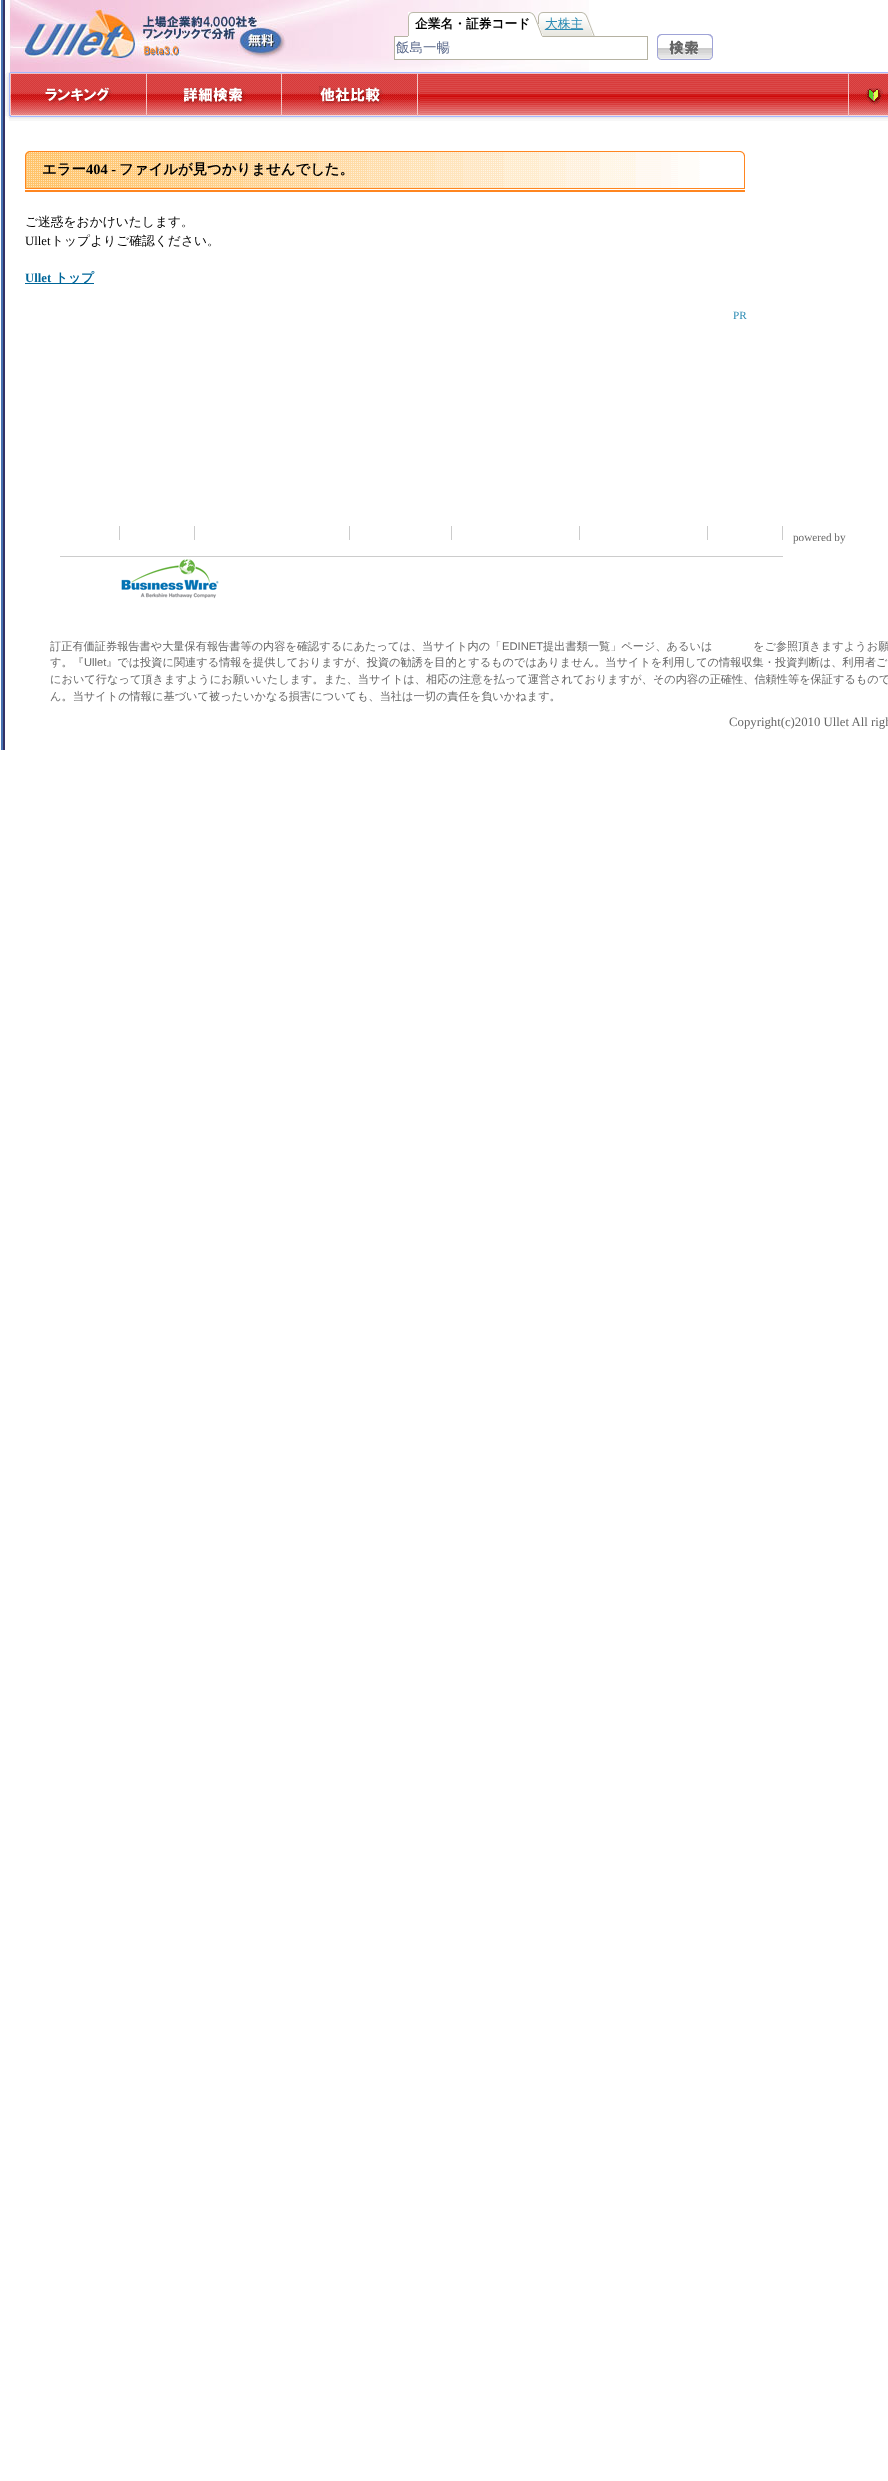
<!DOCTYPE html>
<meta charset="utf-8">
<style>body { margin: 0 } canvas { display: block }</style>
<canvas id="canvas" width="888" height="2481"></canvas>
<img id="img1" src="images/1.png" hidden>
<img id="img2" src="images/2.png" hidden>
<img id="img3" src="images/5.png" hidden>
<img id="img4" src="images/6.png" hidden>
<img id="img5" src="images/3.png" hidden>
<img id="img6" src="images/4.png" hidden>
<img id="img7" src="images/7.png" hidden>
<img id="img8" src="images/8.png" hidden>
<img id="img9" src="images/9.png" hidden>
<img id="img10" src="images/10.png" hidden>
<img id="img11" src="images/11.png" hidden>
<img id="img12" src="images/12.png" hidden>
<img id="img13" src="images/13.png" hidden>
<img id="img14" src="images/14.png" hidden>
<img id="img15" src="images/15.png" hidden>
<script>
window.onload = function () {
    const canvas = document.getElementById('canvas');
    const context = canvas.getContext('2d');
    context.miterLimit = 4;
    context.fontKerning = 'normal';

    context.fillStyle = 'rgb(255, 255, 255)';
    context.fillRect(0, 0, 888, 2481);
    context.drawImage(document.getElementById('img1'), 1, 0, 886, 750);
    context.drawImage(document.getElementById('img2'), 5, 0, 584, 72);
    context.drawImage(document.getElementById('img3'), 543, 12, 52, 24);
    context.drawImage(document.getElementById('img4'), 538, 12, 46, 22);
    context.fillRect(395, 37, 194, 22);
    context.strokeStyle = 'rgb(181, 178, 162)';
    context.strokeRect(394.5, 36.5, 253, 23);
    context.drawImage(document.getElementById('img5'), 408, 12, 135, 25);
    context.drawImage(document.getElementById('img6'), 408, 12, 5, 24);
    context.drawImage(document.getElementById('img7'), 657, 34, 56, 26);
    context.drawImage(document.getElementById('img8'), 5, 72, 4, 46);
    context.drawImage(document.getElementById('img9'), 9, 72, 879, 49);
    context.drawImage(document.getElementById('img10'), 9, 72, 137, 45);
    context.drawImage(document.getElementById('img11'), 146, 74, 137, 42);
    context.drawImage(document.getElementById('img12'), 283, 74, 137, 42);
    context.drawImage(document.getElementById('img13'), 848, 74, 40, 42);
    context.drawImage(document.getElementById('img14'), 25, 151, 720, 41);
    context.fillStyle = 'rgb(0, 102, 153)';
    context.fillRect(25, 283, 69, 1);
    context.fillStyle = 'rgb(204, 204, 204)';
    context.fillRect(60, 556, 723, 1);
    context.fillRect(119, 526, 1, 14);
    context.fillRect(194, 526, 1, 14);
    context.fillRect(349, 526, 1, 14);
    context.fillRect(451, 526, 1, 14);
    context.fillRect(579, 526, 1, 14);
    context.fillRect(707, 526, 1, 14);
    context.fillRect(782, 526, 1, 14);
    context.drawImage(document.getElementById('img15'), 121, 559, 98, 40);
    context.font = 'bold 12.75px WenQuanYi Zen Hei';
    context.fillStyle = 'rgb(0, 0, 0)';
    context.fillText('企業名・証券コード', 415, 28);
    context.font = '500 12.75px WenQuanYi Zen Hei';
    context.fillStyle = 'rgb(43, 139, 180)';
    context.fillText('大株主', 545, 28);
    context.font = '500 13.5px WenQuanYi Zen Hei';
    context.fillStyle = 'rgb(90, 105, 139)';
    context.fillText('飯島一暢', 396, 52);
    context.font = 'bold 14.4px WenQuanYi Zen Hei';
    context.fillStyle = 'rgb(0, 0, 0)';
    context.fillText('エラー', 42, 174);
    context.font = 'bold 14.4px Liberation Serif';
    context.fillText('404 -', 86, 174);
    context.font = 'bold 14.4px WenQuanYi Zen Hei';
    context.fillText('ファイルが見つかりませんでした。', 119, 174);
    context.font = '500 12.75px WenQuanYi Zen Hei';
    context.fillText('ご迷惑をおかけいたします。', 25, 226);
    context.font = '12.75px Liberation Serif';
    context.fillText('Ullet', 25, 245);
    context.font = '500 12.75px WenQuanYi Zen Hei';
    context.fillText('トップよりご確認ください。', 51, 245);
    context.font = 'bold 12.75px Liberation Serif';
    context.fillStyle = 'rgb(0, 102, 153)';
    context.fillText('Ullet', 25, 282);
    context.font = 'bold 12.75px WenQuanYi Zen Hei';
    context.fillText('トップ', 55, 282);
    context.font = '11.2px Liberation Serif';
    context.fillStyle = 'rgb(43, 139, 180)';
    context.fillText('PR', 733, 319);
    context.fillStyle = 'rgb(102, 102, 102)';
    context.fillText('powered by', 793, 541);
    context.font = '500 11.2px WenQuanYi Zen Hei';
    context.fillText('訂正有価証券報告書や大量保有報告書等の内容を確認するにあたっては、当サイト内の「', 50, 650);
    context.font = '11.2px Liberation Sans';
    context.fillText('EDINET', 502, 650);
    context.font = '500 11.2px WenQuanYi Zen Hei';
    context.fillText('提出書類一覧」ページ、あるいは', 543, 650);
    context.fillText('をご参照頂きますようお願', 753, 650);
    context.fillText('す。『', 50, 666);
    context.font = '11.2px Liberation Sans';
    context.fillText('Ullet', 84, 666);
    context.font = '500 11.2px WenQuanYi Zen Hei';
    context.fillText('』では投資に関連する情報を提供しておりますが、投資の勧誘を目的とするものではありません。当サイトを利用しての情報収集・投資判断は、利用者ご', 106, 666);
    context.fillText('において行なって頂きますようにお願いいたします。また、当サイトは、相応の注意を払って運営されておりますが、その内容の正確性、信頼性等を保証するもので', 50, 683);
    context.fillText('ん。当サイトの情報に基づいて被ったいかなる損害についても、当社は一切の責任を負いかねます。', 50, 700);
    context.font = '12.75px Liberation Serif';
    context.fillText('Copyright(c)2010 Ullet All righ', 729, 726);
};
</script>
